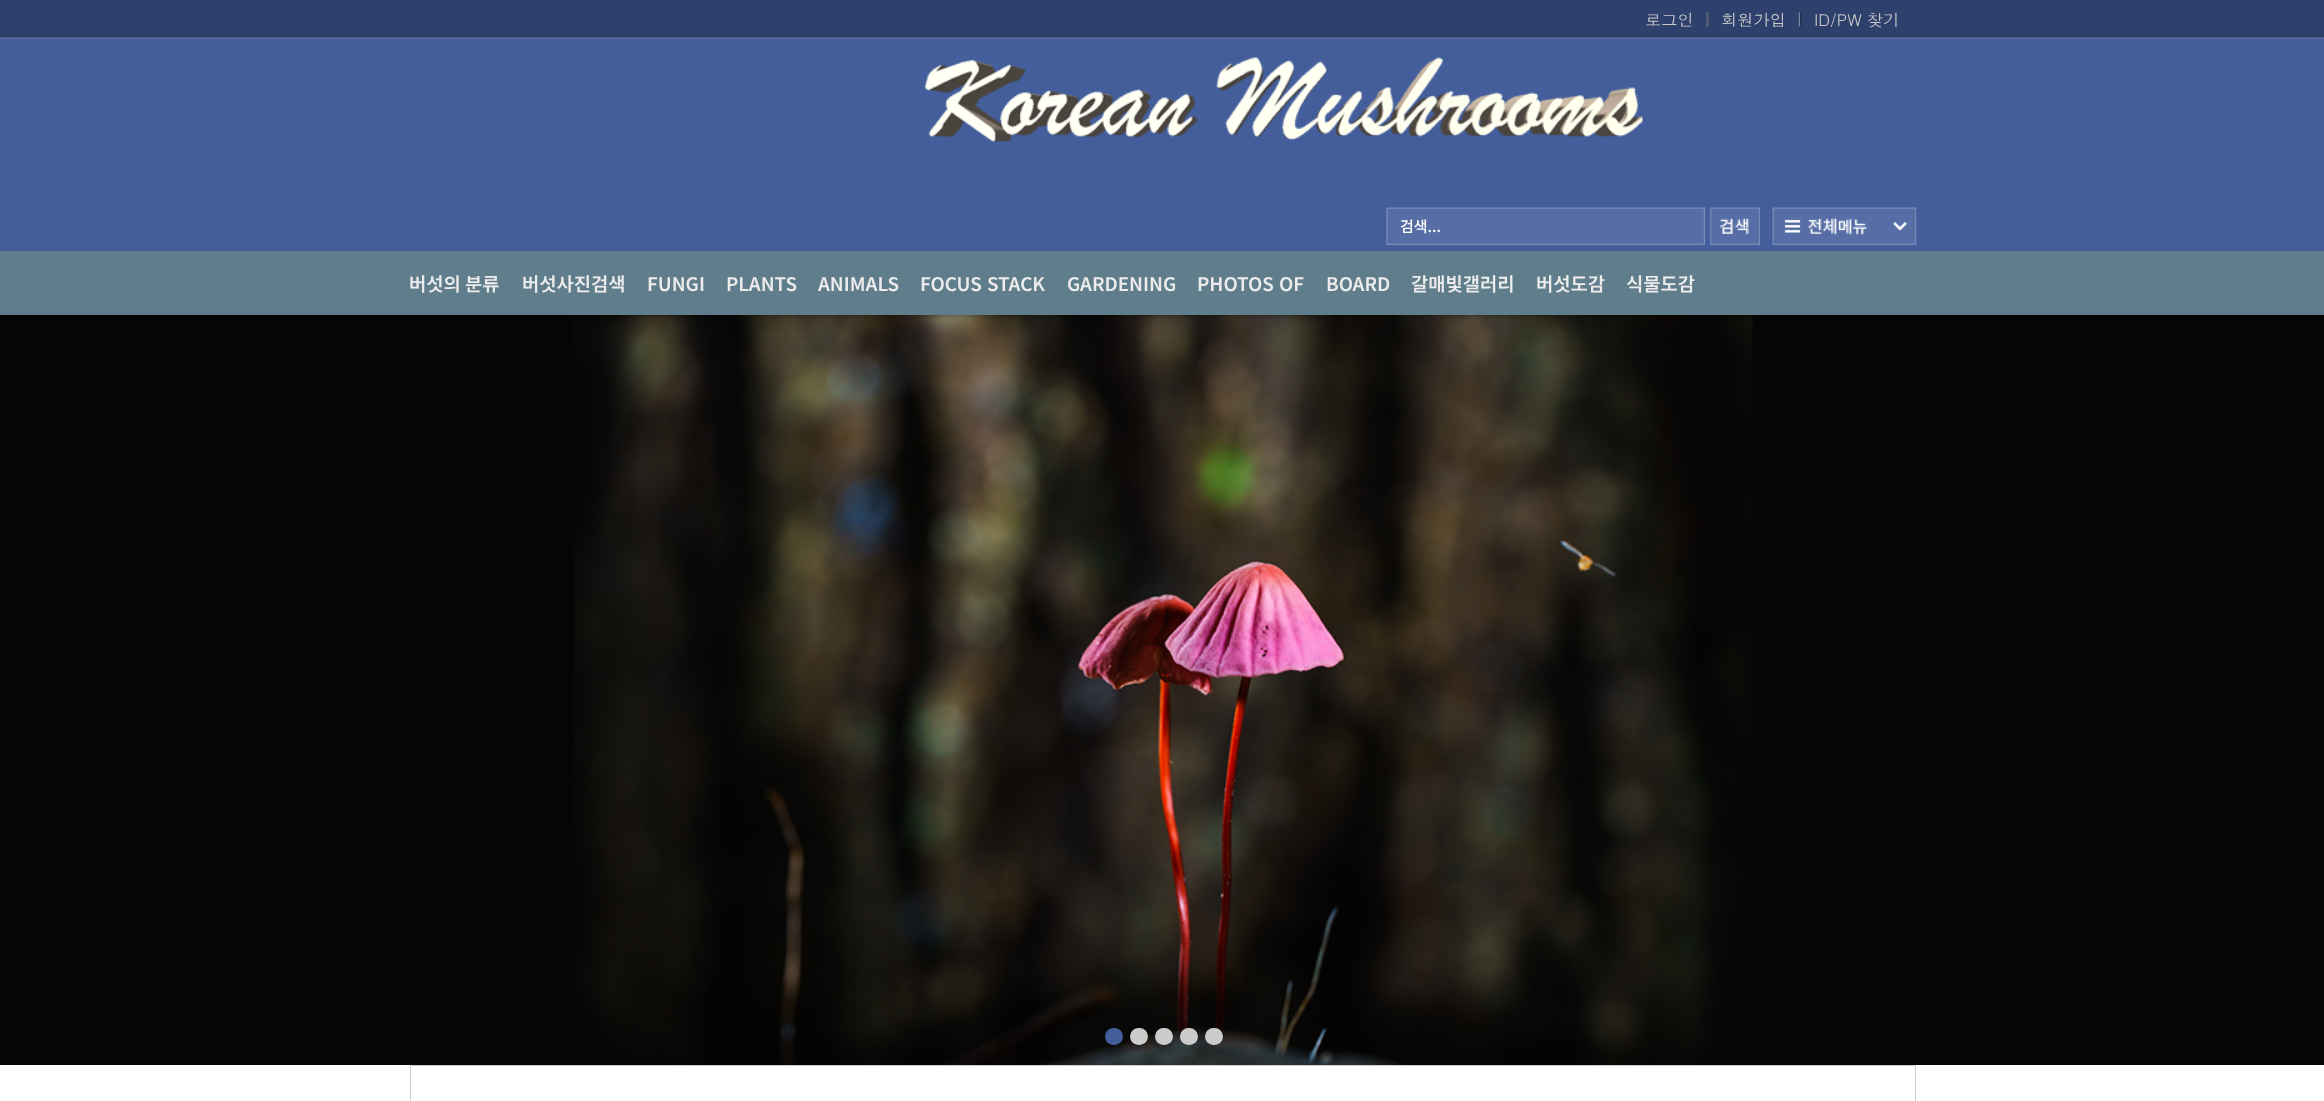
<!DOCTYPE html>
<meta charset="utf-8">
<style>body { margin: 0 } canvas { display: block }</style>
<canvas id="canvas" width="2324" height="1101"></canvas>
<img id="img1" src="images/1.png" hidden>
<img id="img2" src="images/2.png" hidden>
<img id="img3" src="images/3.png" hidden>
<img id="img4" src="images/4.png" hidden>
<img id="img5" src="images/5.png" hidden>
<img id="img6" src="images/6.png" hidden>
<script>
window.onload = function () {
    const canvas = document.getElementById('canvas');
    const context = canvas.getContext('2d');
    context.miterLimit = 4;
    context.fontKerning = 'normal';

    context.fillStyle = 'rgb(255, 255, 255)';
    context.fillRect(0, 0, 2324, 1101);
    context.fillStyle = 'rgb(67, 94, 155)';
    context.fillRect(0, 0, 2324, 251);
    context.drawImage(document.getElementById('img1'), 0, 0, 2324, 39);
    context.fillStyle = 'rgb(79, 91, 116)';
    context.fillRect(1706, 12, 3, 15);
    context.drawImage(document.getElementById('img2'), 1798, 12, 4, 15);
    context.drawImage(document.getElementById('img3'), 420, 57, 1223, 85);
    context.drawImage(document.getElementById('img4'), 1386, 207, 374, 38);
    context.drawImage(document.getElementById('img5'), 1772, 207, 145, 38);
    context.drawImage(document.getElementById('img6'), 0, 315, 2324, 750);
    context.fillStyle = 'rgba(0, 0, 0, 0.3)';
    context.filter = 'blur(2px)';
    context.beginPath();
    context.rect(0, 253, 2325, 63);
    context.fill();
    context.filter = 'none';
    context.fillStyle = 'rgb(96, 125, 139)';
    context.fillRect(0, 251, 2324, 64);
    context.fillStyle = 'rgb(67, 94, 155)';
    context.beginPath();
    context.roundRect(1105, 1028, 18, 17, 8.5);
    context.fill();
    context.fillStyle = 'rgb(204, 204, 204)';
    context.beginPath();
    context.roundRect(1130, 1028, 18, 17, 8.5);
    context.fill();
    context.beginPath();
    context.roundRect(1155, 1028, 18, 17, 8.5);
    context.fill();
    context.beginPath();
    context.roundRect(1180, 1028, 18, 17, 8.5);
    context.fill();
    context.beginPath();
    context.roundRect(1205, 1028, 18, 17, 8.5);
    context.fill();
    context.strokeStyle = 'rgb(205, 205, 205)';
    context.strokeRect(410.5, 1065.5, 1505, 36);
    context.font = '16.25px Dotum';
    context.fillText('로그인', 1645, 26);
    context.fillText('회원가입', 1721, 26);
    context.fillText('ID/PW 찾기', 1814, 26);
    context.font = '500 15px Noto Sans KR';
    context.fillStyle = 'rgb(255, 255, 255)';
    context.fillText('검색...', 1400, 232);
    context.font = '600 18.75px Noto Sans KR';
    context.fillStyle = 'rgb(236, 236, 236)';
    context.fillText('버섯의 분류', 409, 291);
    context.fillText('버섯사진검색', 522, 291);
    context.fillText('FUNGI', 647, 291);
    context.fillText('PLANTS', 726, 291);
    context.fillText('ANIMALS', 818, 291);
    context.wordSpacing = '1px';
    context.fillText('FOCUS STACK', 920, 291);
    context.wordSpacing = '0px';
    context.fillText('GARDENING', 1067, 291);
    context.wordSpacing = '1px';
    context.fillText('PHOTOS OF', 1197, 291);
    context.wordSpacing = '0px';
    context.fillText('BOARD', 1326, 291);
    context.fillText('갈매빛갤러리', 1411, 291);
    context.fillText('버섯도감', 1536, 291);
    context.fillText('식물도감', 1626, 291);
};
</script>
